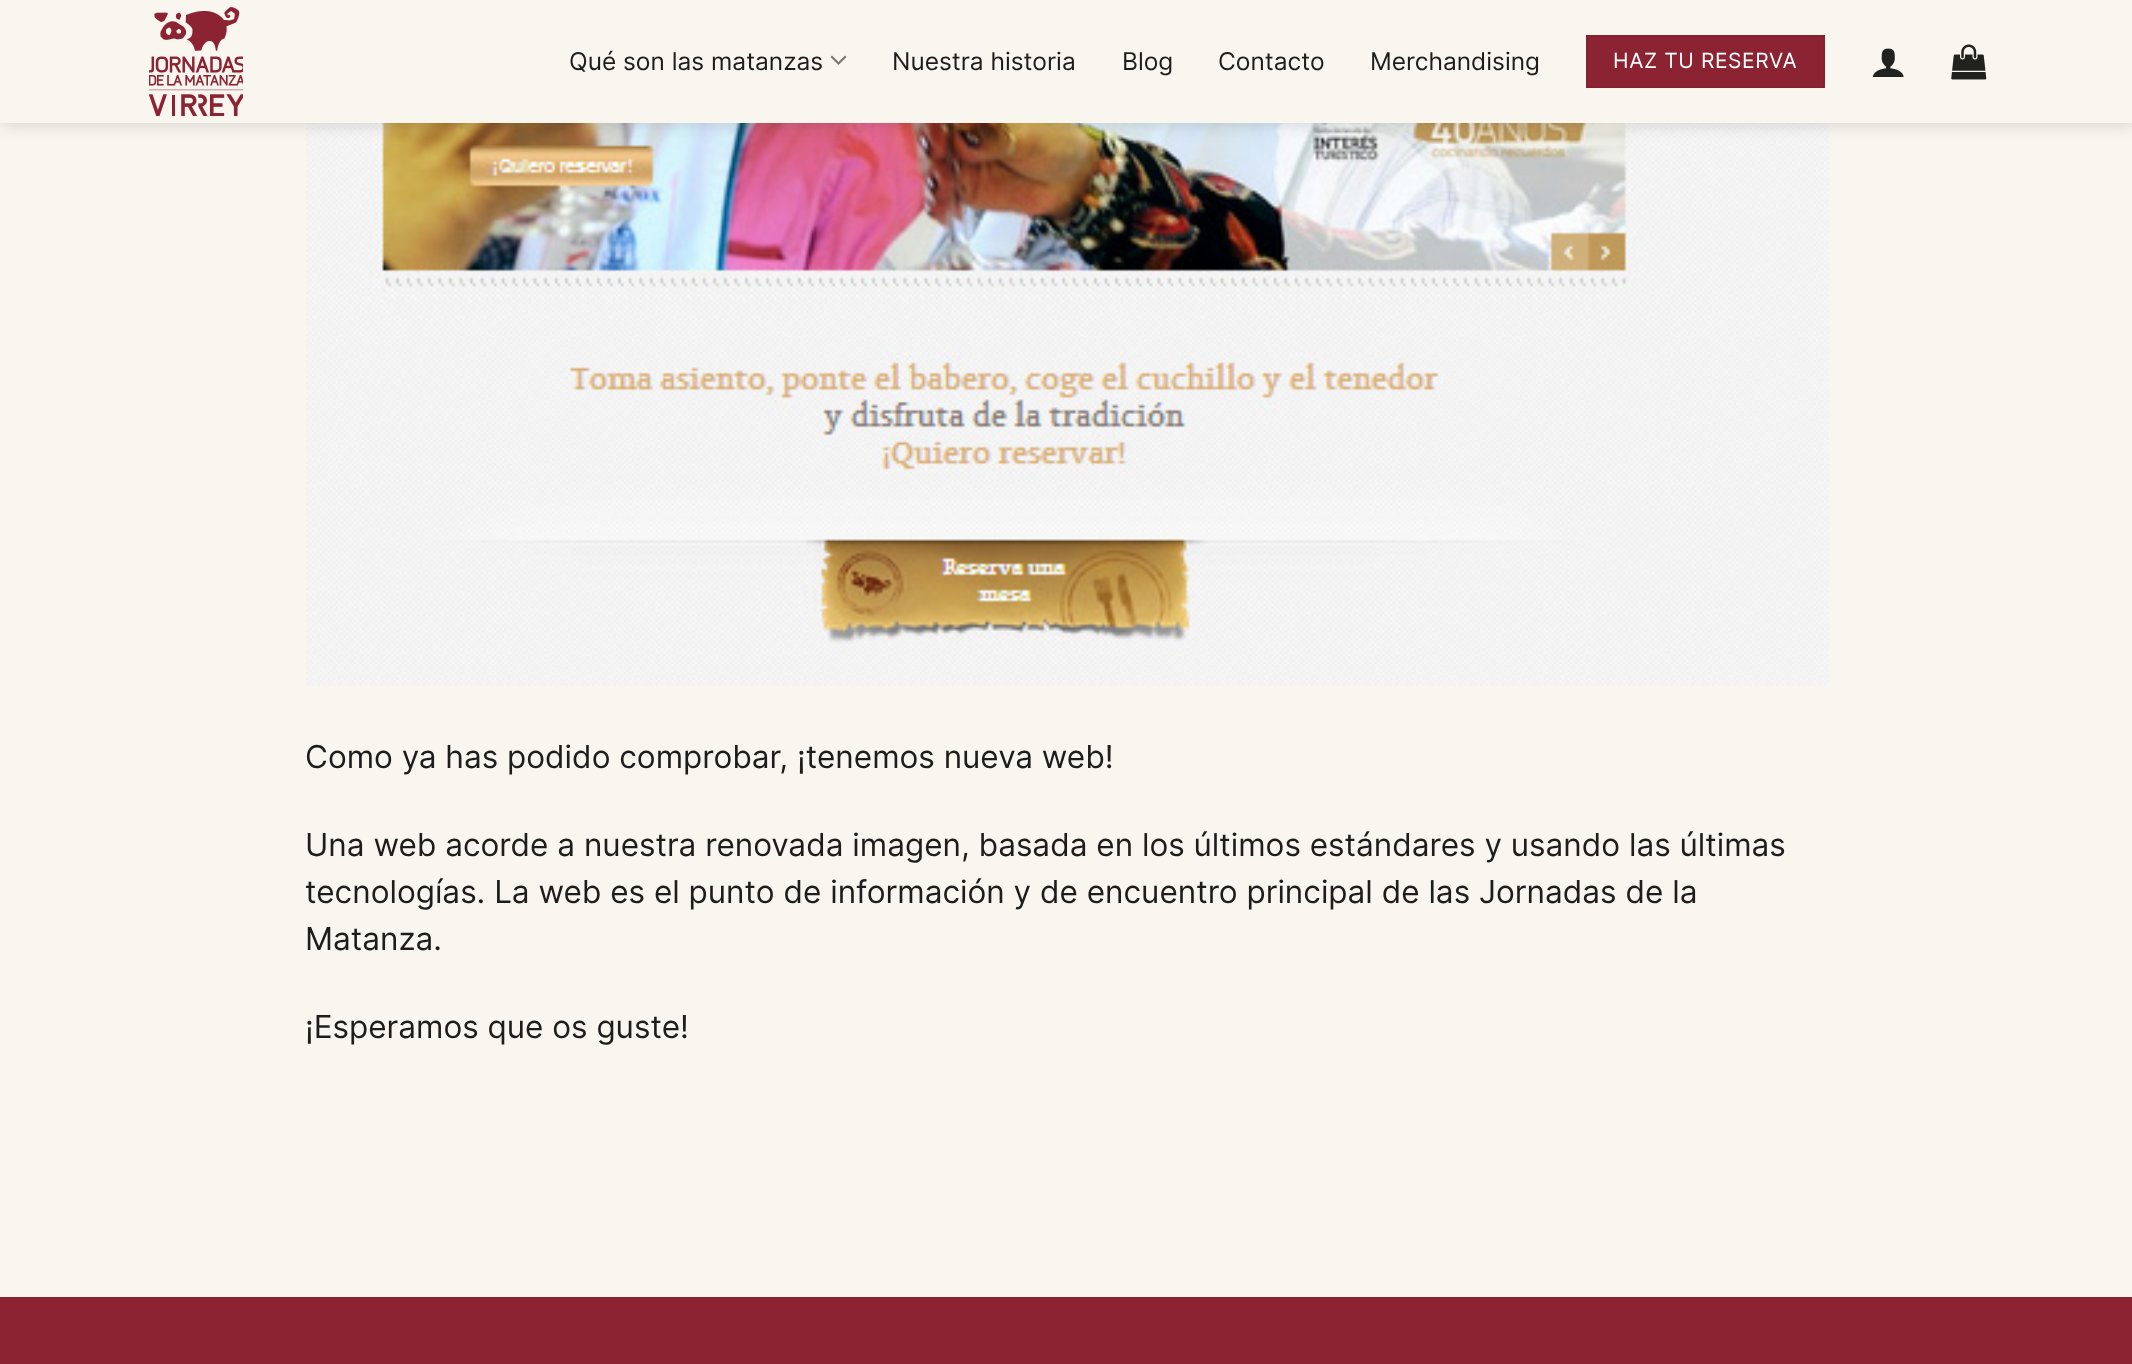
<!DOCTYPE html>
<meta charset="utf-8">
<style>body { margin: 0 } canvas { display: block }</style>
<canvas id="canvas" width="2132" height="1364"></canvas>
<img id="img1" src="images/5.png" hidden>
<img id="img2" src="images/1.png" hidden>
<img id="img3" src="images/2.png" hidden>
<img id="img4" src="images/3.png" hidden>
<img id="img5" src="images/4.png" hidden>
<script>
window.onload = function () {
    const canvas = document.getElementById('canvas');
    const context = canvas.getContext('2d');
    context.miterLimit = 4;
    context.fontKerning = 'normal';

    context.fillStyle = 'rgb(249, 245, 239)';
    context.fillRect(0, 0, 2132, 1364);
    context.drawImage(document.getElementById('img1'), 306, 123, 1523, 563);
    context.fillStyle = 'rgba(0, 0, 0, 0.15)';
    context.filter = 'blur(9px)';
    context.beginPath();
    context.rect(2, 2, 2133, 122);
    context.fill();
    context.filter = 'none';
    context.fillStyle = 'rgb(249, 245, 239)';
    context.fillRect(0, 0, 2132, 123);
    context.drawImage(document.getElementById('img2'), 149, 7, 94, 109);
    context.drawImage(document.getElementById('img3'), 830, 55, 17, 10);
    context.fillStyle = 'rgb(140, 35, 50)';
    context.beginPath();
    context.rect(1587, 36, 237, 51);
    context.fill();
    context.strokeStyle = 'rgb(133, 33, 48)';
    context.lineWidth = 2;
    context.stroke();
    context.drawImage(document.getElementById('img4'), 1873, 48, 31, 29);
    context.drawImage(document.getElementById('img5'), 1951, 44, 36, 36);
    context.fillRect(0, 1297, 2132, 67);
    context.font = '24.5px Inter';
    context.fillStyle = 'rgb(29, 29, 27)';
    context.fillText('Qué son las matanzas', 569, 70);
    context.fillText('Nuestra historia', 892, 70);
    context.fillText('Blog', 1122, 70);
    context.fillText('Contacto', 1218, 70);
    context.fillText('Merchandising', 1370, 70);
    context.letterSpacing = '0.6px';
    context.font = '21px Inter';
    context.fillStyle = 'rgb(255, 255, 255)';
    context.fillText('HAZ TU RESERVA', 1613, 68);
    context.letterSpacing = '0px';
    context.font = '31.5px Inter';
    context.fillStyle = 'rgb(29, 29, 27)';
    context.fillText('Como ya has podido comprobar, ¡tenemos nueva web!', 305, 768);
    context.fillText('Una web acorde a nuestra renovada imagen, basada en los últimos estándares y usando las últimas', 305, 856);
    context.fillText('tecnologías. La web es el punto de información y de encuentro principal de las Jornadas de la', 305, 903);
    context.fillText('Matanza.', 305, 950);
    context.fillText('¡Esperamos que os guste!', 305, 1038);
};
</script>
